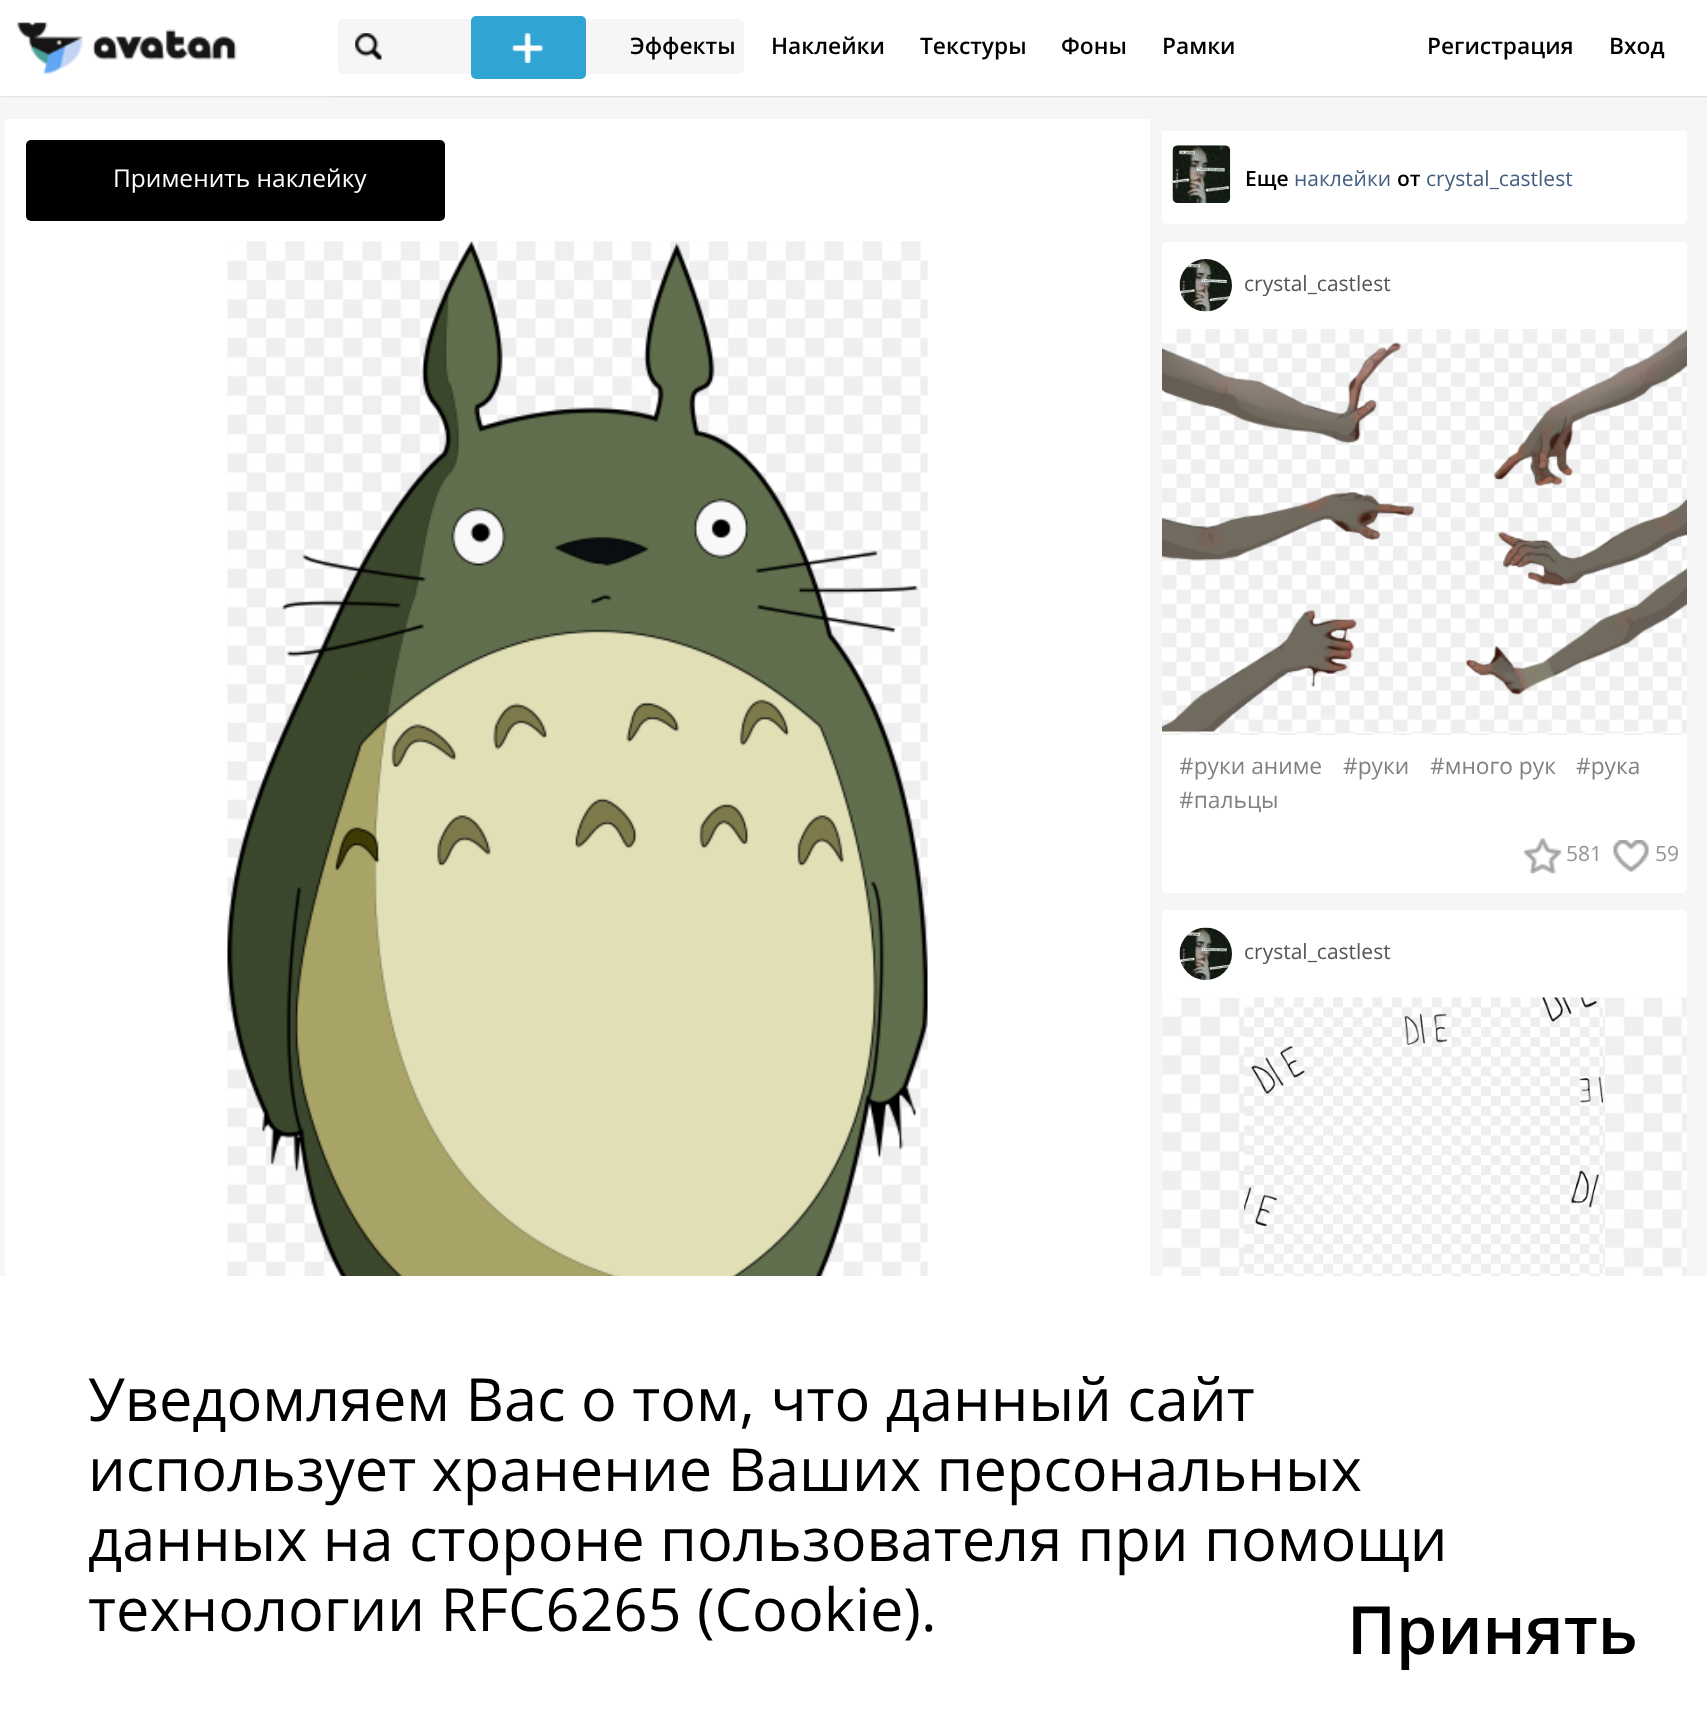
<!DOCTYPE html>
<meta charset="utf-8">
<style>body { margin: 0 } canvas { display: block }</style>
<canvas id="canvas" width="1707" height="1730"></canvas>
<img id="img1" src="images/1.png" hidden>
<img id="img2" src="images/2.png" hidden>
<img id="img3" src="images/3.png" hidden>
<img id="img4" src="images/4.png" hidden>
<img id="img5" src="images/5.png" hidden>
<img id="img6" src="images/6.png" hidden>
<img id="img7" src="images/7.png" hidden>
<img id="img8" src="images/8.png" hidden>
<img id="img9" src="images/9.png" hidden>
<img id="img10" src="images/10.png" hidden>
<img id="img11" src="images/11.png" hidden>
<img id="img12" src="images/12.png" hidden>
<img id="img13" src="images/13.png" hidden>
<img id="img14" src="images/14.png" hidden>
<script>
window.onload = function () {
    const canvas = document.getElementById('canvas');
    const context = canvas.getContext('2d');
    context.miterLimit = 4;
    context.fontKerning = 'normal';

    context.fillStyle = 'rgb(246, 246, 246)';
    context.fillRect(0, 0, 1707, 1730);
    context.fillStyle = 'rgba(0, 0, 0, 0.3)';
    context.filter = 'blur(1px)';
    context.beginPath();
    context.rect(0, 0, 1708, 96);
    context.fill();
    context.filter = 'none';
    context.fillStyle = 'rgb(255, 255, 255)';
    context.fillRect(0, 0, 1707, 96);
    context.drawImage(document.getElementById('img1'), 0, 22, 332, 75);
    context.fillStyle = 'rgb(246, 246, 246)';
    context.beginPath();
    context.roundRect(338, 19, 406, 55, 5);
    context.fill();
    context.drawImage(document.getElementById('img2'), 355, 33, 27, 27);
    context.fillStyle = 'rgb(48, 165, 212)';
    context.beginPath();
    context.roundRect(471, 16, 115, 63, 5);
    context.fill();
    context.drawImage(document.getElementById('img3'), 512, 33, 31, 30);
    context.fillStyle = 'rgb(255, 255, 255)';
    context.fillRect(5, 119, 1145, 1157);
    context.fillStyle = 'rgb(0, 0, 0)';
    context.beginPath();
    context.roundRect(26, 140, 419, 81, 5);
    context.fill();
    context.drawImage(document.getElementById('img4'), 227, 241, 701, 1035);
    context.drawImage(document.getElementById('img5'), 227, 241, 701, 1035);
    context.fillStyle = 'rgb(255, 255, 255)';
    context.beginPath();
    context.roundRect(1162, 131, 525, 93, [0, 0, 5, 5]);
    context.fill();
    context.drawImage(document.getElementById('img6'), 1172, 145, 59, 58);
    context.beginPath();
    context.roundRect(1162, 242, 525, 651, 5);
    context.fill();
    context.drawImage(document.getElementById('img7'), 1179, 259, 53, 53);
    context.drawImage(document.getElementById('img8'), 1162, 731, 525, 4);
    context.drawImage(document.getElementById('img9'), 1162, 329, 525, 403);
    context.drawImage(document.getElementById('img10'), 1523, 837, 39, 37);
    context.drawImage(document.getElementById('img11'), 1613, 840, 36, 32);
    context.beginPath();
    context.roundRect(1162, 910, 525, 663, 5);
    context.fill();
    context.drawImage(document.getElementById('img12'), 1179, 927, 53, 53);
    context.drawImage(document.getElementById('img13'), 1162, 997, 525, 279);
    context.drawImage(document.getElementById('img14'), 1244, 997, 359, 279);
    context.fillRect(0, 1276, 1707, 454);
    context.font = '600 22.75px Open Sans';
    context.fillStyle = 'rgb(0, 0, 0)';
    context.fillText('Эффекты', 630, 54);
    context.fillText('Наклейки', 771, 54);
    context.fillText('Текстуры', 920, 54);
    context.fillText('Фоны', 1061, 54);
    context.fillText('Рамки', 1162, 54);
    context.fillText('Регистрация', 1427, 54);
    context.fillText('Вход', 1609, 54);
    context.font = '24.5px Open Sans';
    context.fillStyle = 'rgb(255, 255, 255)';
    context.fillText('Применить наклейку', 113, 187);
    context.font = '600 21px Open Sans';
    context.fillStyle = 'rgb(0, 0, 0)';
    context.fillText('Еще', 1245, 186);
    context.font = '21px Open Sans';
    context.fillStyle = 'rgb(68, 94, 127)';
    context.fillText('наклейки', 1294, 186);
    context.font = '600 21px Open Sans';
    context.fillStyle = 'rgb(0, 0, 0)';
    context.fillText('от', 1397, 186);
    context.font = '21px Open Sans';
    context.fillStyle = 'rgb(68, 94, 127)';
    context.fillText('crystal_castlest', 1426, 186);
    context.fillStyle = 'rgb(85, 85, 85)';
    context.fillText('crystal_castlest', 1244, 291);
    context.save();
    context.beginPath();
    context.rect(1180, 753, 507, 66);
    context.clip();
    context.font = '22.75px Open Sans';
    context.fillStyle = 'rgb(129, 129, 129)';
    context.fillText('#руки аниме', 1179, 774);
    context.restore();
    context.font = '22.75px Open Sans';
    context.fillStyle = 'rgb(129, 129, 129)';
    context.fillText('#руки', 1343, 774);
    context.fillText('#много рук', 1430, 774);
    context.fillText('#рука', 1576, 774);
    context.save();
    context.beginPath();
    context.rect(1180, 753, 507, 66);
    context.clip();
    context.fillText('#пальцы', 1179, 808);
    context.restore();
    context.font = '21px Open Sans';
    context.fillStyle = 'rgb(149, 149, 149)';
    context.fillText('581', 1566, 861);
    context.fillText('59', 1655, 861);
    context.fillStyle = 'rgb(85, 85, 85)';
    context.fillText('crystal_castlest', 1244, 959);
    context.font = '59.5px Open Sans';
    context.fillStyle = 'rgb(0, 0, 0)';
    context.fillText('Уведомляем Вас о том, что данный сайт', 88, 1421);
    context.fillText('использует хранение Ваших персональных', 88, 1491);
    context.fillText('данных на стороне пользователя при помощи', 88, 1561);
    context.fillText('технологии RFC6265 (Cookie).', 88, 1631);
    context.font = '600 66.5px Open Sans';
    context.fillText('Принять', 1347, 1654);
};
</script>
